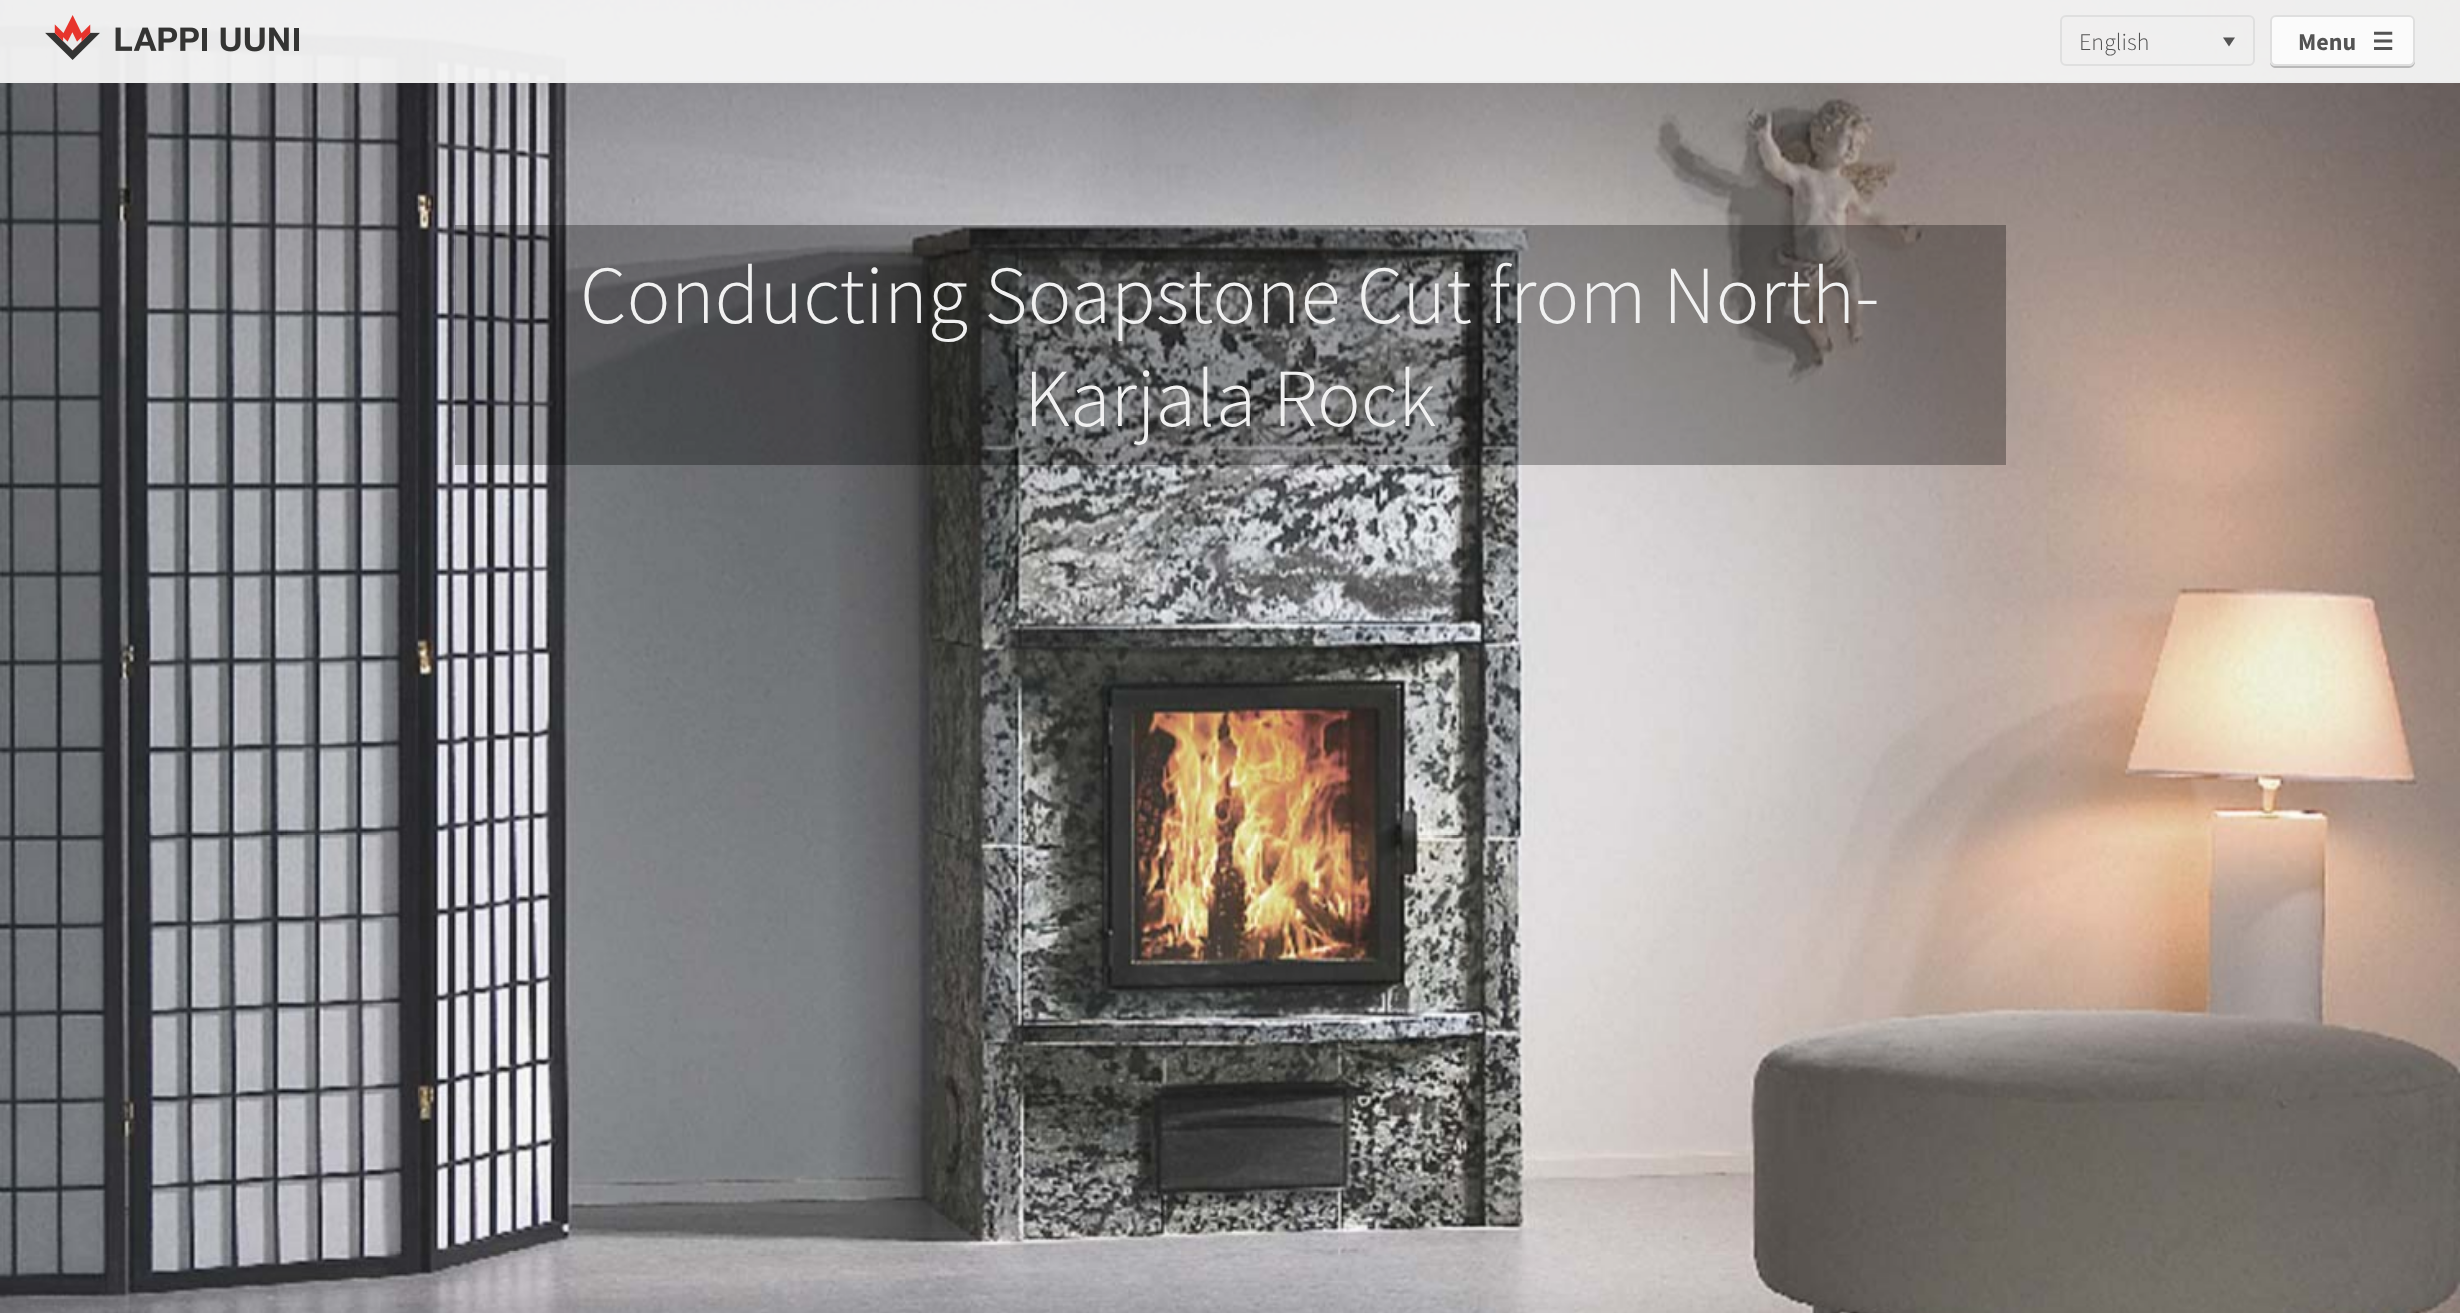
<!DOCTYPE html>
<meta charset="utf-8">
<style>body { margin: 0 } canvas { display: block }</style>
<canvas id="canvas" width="2460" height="1313"></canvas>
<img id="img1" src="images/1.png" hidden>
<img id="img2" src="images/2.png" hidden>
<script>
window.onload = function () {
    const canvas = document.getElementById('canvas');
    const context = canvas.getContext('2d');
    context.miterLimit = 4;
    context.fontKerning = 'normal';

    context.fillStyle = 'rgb(255, 255, 255)';
    context.fillRect(0, 0, 2460, 1313);
    context.drawImage(document.getElementById('img1'), 0, 0, 2460, 1313);
    context.fillStyle = 'rgba(246, 246, 246, 0.95)';
    context.fillRect(0, 0, 2460, 81);
    context.fillStyle = 'rgb(236, 236, 236)';
    context.fillRect(0, 81, 2460, 2);
    context.drawImage(document.getElementById('img2'), 45, 15, 254, 45);
    context.beginPath();
    context.roundRect(2061, 16, 193, 49, 5);
    context.strokeStyle = 'rgb(223, 223, 223)';
    context.lineWidth = 2;
    context.stroke();
    context.fillStyle = 'rgb(83, 83, 83)';
    context.beginPath();
    context.moveTo(2223, 37.5);
    context.lineTo(2235, 37.5);
    context.lineTo(2229, 46.5);
    context.closePath();
    context.fill();
    context.fillStyle = 'rgb(185, 185, 185)';
    context.beginPath();
    context.moveTo(2270, 62);
    context.bezierCurveTo(2270, 66, 2273, 68, 2276, 68);
    context.lineTo(2409, 68);
    context.bezierCurveTo(2412, 68, 2415, 65, 2415, 62);
    context.lineTo(2415, 60);
    context.bezierCurveTo(2415, 63, 2412, 66, 2409, 66);
    context.lineTo(2276, 66);
    context.bezierCurveTo(2273, 66, 2271, 65, 2270, 62);
    context.closePath();
    context.fill();
    context.fillStyle = 'rgb(251, 251, 251)';
    context.beginPath();
    context.roundRect(2271, 16, 143, 49, 5);
    context.fill();
    context.stroke();
    context.fillStyle = 'rgba(0, 0, 0, 0.3)';
    context.fillRect(455, 225, 1551, 240);
    context.font = '300 24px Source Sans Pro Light';
    context.fillStyle = 'rgb(83, 83, 83)';
    context.fillText('English', 2079, 50);
    context.font = 'bold 24px Source Sans Pro';
    context.fillText('Menu', 2298, 50);
    context.font = 'bold 24px DejaVu Sans';
    context.fillText('☰', 2372, 50);
    context.font = '300 82.5px Source Sans Pro Light';
    context.fillStyle = 'rgb(241, 241, 241)';
    context.fillText('Conducting Soapstone Cut from North-', 580, 323);
    context.fillText('Karjala Rock', 1024, 426);
};
</script>
